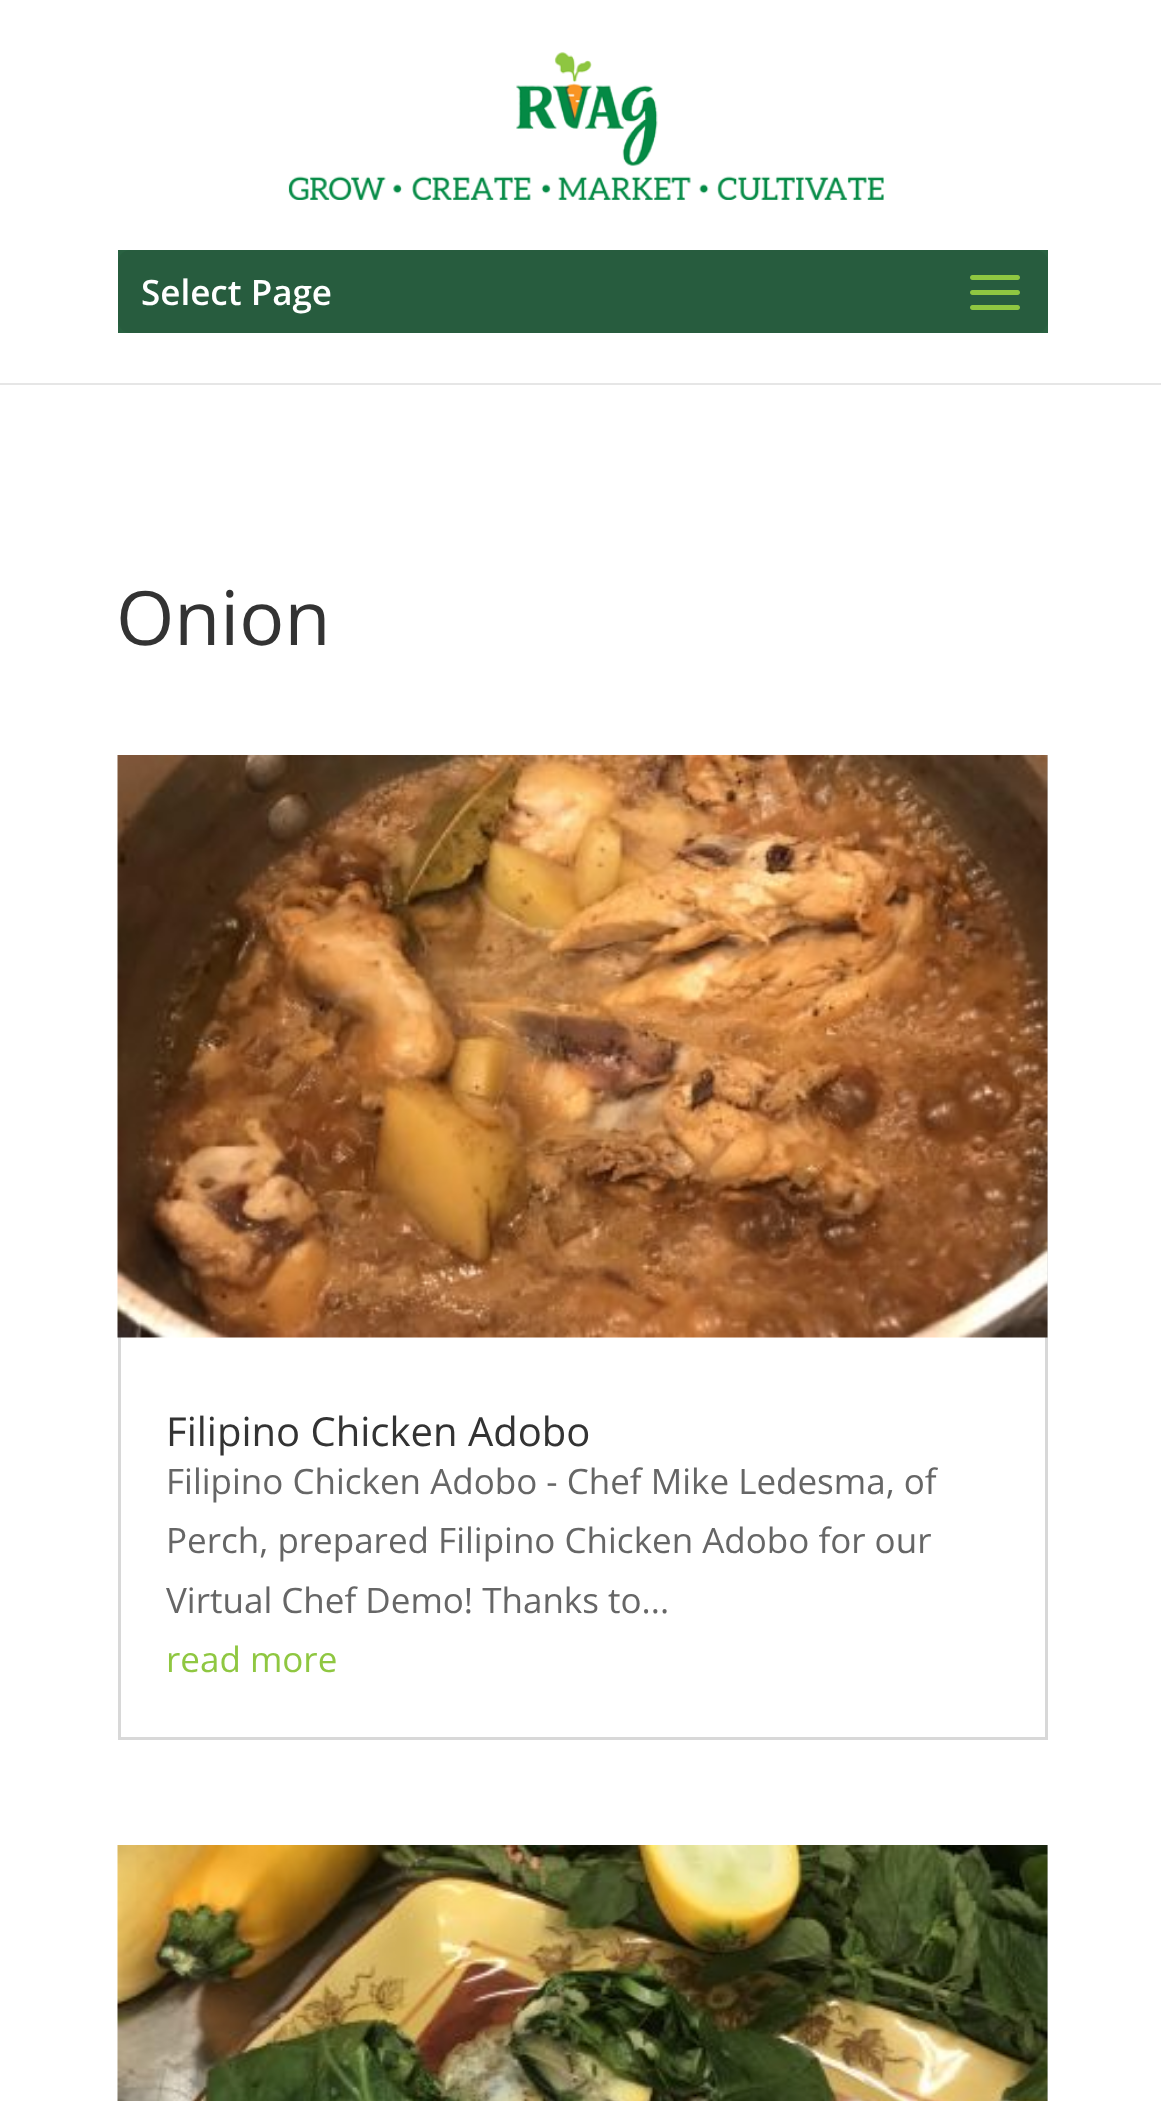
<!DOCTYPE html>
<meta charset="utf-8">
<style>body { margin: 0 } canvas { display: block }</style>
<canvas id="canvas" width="1161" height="2101"></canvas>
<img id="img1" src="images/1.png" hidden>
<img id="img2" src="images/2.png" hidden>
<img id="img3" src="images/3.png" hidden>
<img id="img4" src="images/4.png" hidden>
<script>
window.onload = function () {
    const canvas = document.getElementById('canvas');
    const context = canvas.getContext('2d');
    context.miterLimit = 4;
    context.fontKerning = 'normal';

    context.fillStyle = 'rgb(255, 255, 255)';
    context.fillRect(0, 0, 1161, 2101);
    context.fillStyle = 'rgb(230, 230, 230)';
    context.beginPath();
    context.moveTo(0, 382);
    context.lineTo(0, 385);
    context.lineTo(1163, 385);
    context.lineTo(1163, 3);
    context.lineTo(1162, 3);
    context.lineTo(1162, 382);
    context.closePath();
    context.fill();
    context.fillStyle = 'rgb(255, 255, 255)';
    context.fillRect(0, 382, 1161, 1);
    context.drawImage(document.getElementById('img1'), 288, 52, 596, 148);
    context.fillStyle = 'rgb(41, 97, 65)';
    context.fillRect(118, 250, 930, 83);
    context.fillStyle = 'rgb(39, 92, 62)';
    context.beginPath();
    context.roundRect(118, 250, 930, 83, 13);
    context.fill();
    context.drawImage(document.getElementById('img2'), 970, 275, 50, 35);
    context.strokeStyle = 'rgb(216, 216, 216)';
    context.lineWidth = 3;
    context.strokeRect(119.5, 756.5, 927, 982);
    context.drawImage(document.getElementById('img3'), 117, 755, 931, 583);
    context.strokeRect(119.5, 1846.5, 927, 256);
    context.drawImage(document.getElementById('img4'), 117, 1845, 931, 256);
    context.font = '600 35px Open Sans';
    context.fillStyle = 'rgb(255, 255, 255)';
    context.fillText('Select Page', 141, 305);
    context.font = '75px Open Sans';
    context.fillStyle = 'rgb(51, 51, 51)';
    context.fillText('Onion', 116, 645);
    context.font = '40px Open Sans';
    context.fillText('Filipino Chicken Adobo', 166, 1446);
    context.font = '35px Open Sans';
    context.fillStyle = 'rgb(102, 102, 102)';
    context.fillText('Filipino Chicken Adobo - Chef Mike Ledesma, of', 166, 1494);
    context.fillText('Perch, prepared Filipino Chicken Adobo for our', 166, 1553);
    context.fillText('Virtual Chef Demo! Thanks to...', 166, 1613);
    context.fillStyle = 'rgb(143, 199, 65)';
    context.fillText('read more', 166, 1672);
};
</script>
